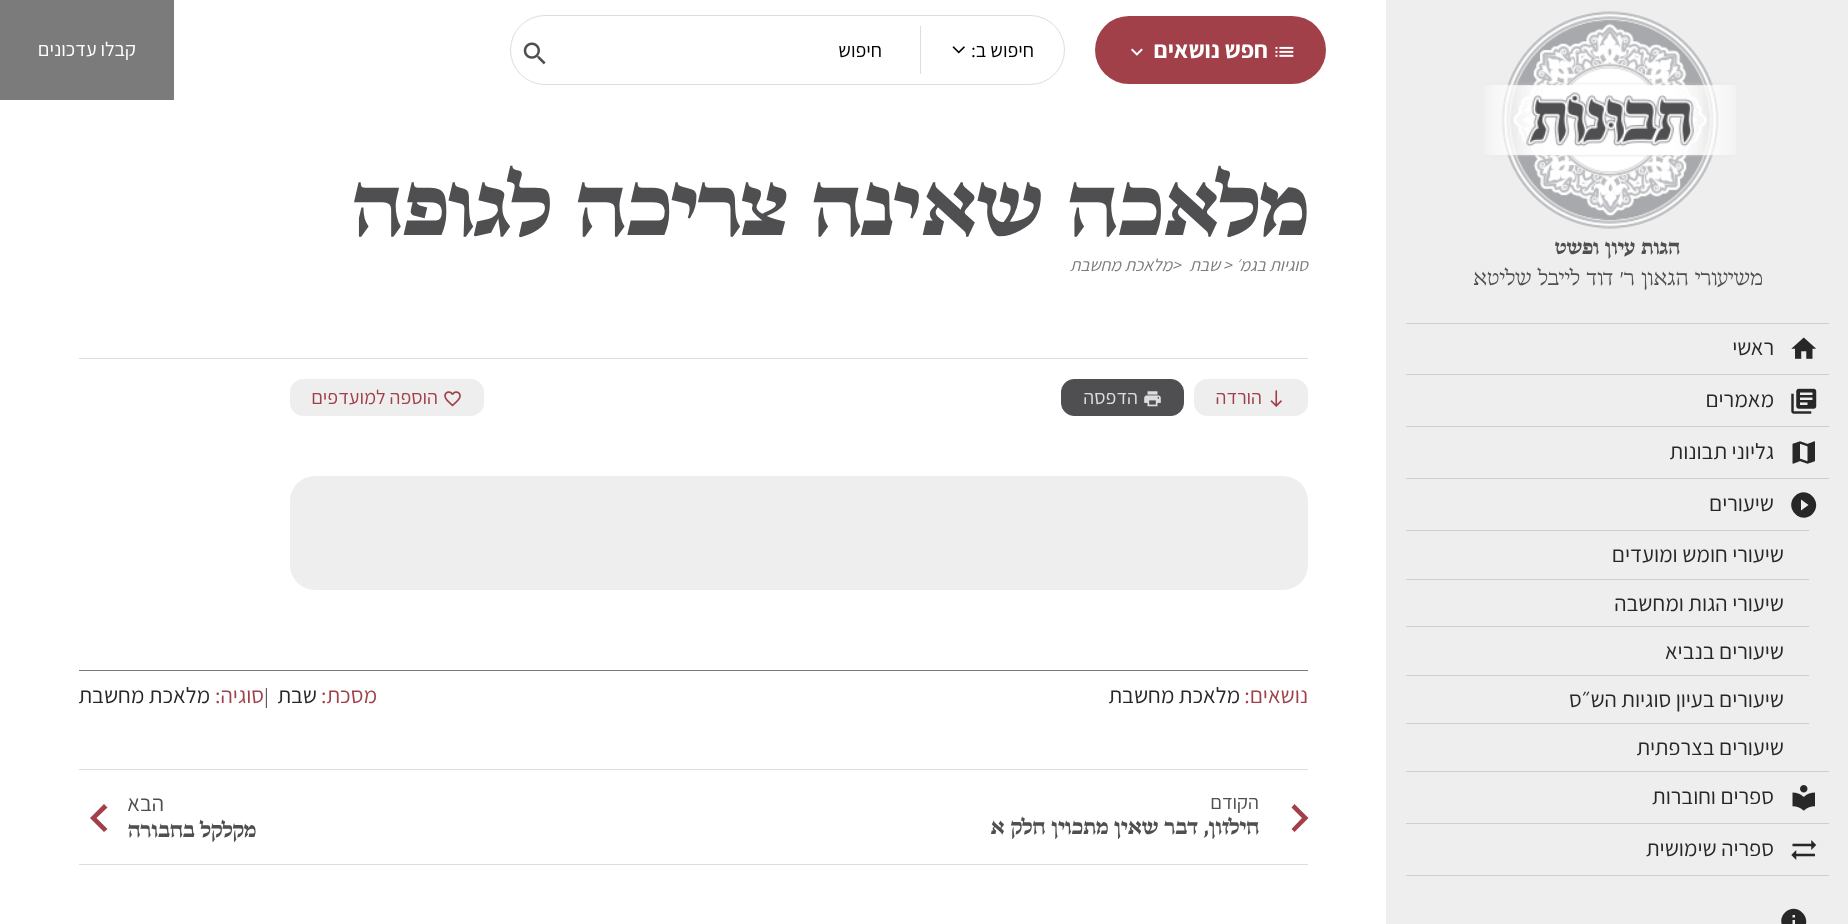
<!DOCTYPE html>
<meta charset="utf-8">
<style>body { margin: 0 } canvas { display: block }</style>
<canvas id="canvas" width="1848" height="924"></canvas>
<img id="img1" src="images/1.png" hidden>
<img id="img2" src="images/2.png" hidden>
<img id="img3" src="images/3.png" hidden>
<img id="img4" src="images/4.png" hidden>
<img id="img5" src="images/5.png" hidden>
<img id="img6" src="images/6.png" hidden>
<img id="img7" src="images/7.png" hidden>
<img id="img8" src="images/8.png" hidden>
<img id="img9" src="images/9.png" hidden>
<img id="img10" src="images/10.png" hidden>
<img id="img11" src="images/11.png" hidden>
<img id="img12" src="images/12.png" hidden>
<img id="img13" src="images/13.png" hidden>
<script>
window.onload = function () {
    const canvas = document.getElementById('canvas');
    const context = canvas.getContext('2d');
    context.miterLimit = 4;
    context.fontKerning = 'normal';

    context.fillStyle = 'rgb(255, 255, 255)';
    context.fillRect(0, 0, 1848, 924);
    context.fillStyle = 'rgb(161, 64, 73)';
    context.beginPath();
    context.roundRect(1095, 16, 231, 68, 34);
    context.fill();
    context.drawImage(document.getElementById('img1'), 1275, 46, 19, 11);
    context.drawImage(document.getElementById('img2'), 1131, 48, 12, 8);
    context.beginPath();
    context.roundRect(510.5, 15.5, 554, 69, 34.5);
    context.strokeStyle = 'rgb(221, 221, 221)';
    context.stroke();
    context.fillStyle = 'rgb(221, 221, 221)';
    context.fillRect(920, 26, 1, 48);
    context.drawImage(document.getElementById('img3'), 952, 46, 13, 8);
    context.drawImage(document.getElementById('img4'), 523, 42, 23, 23);
    context.fillStyle = 'rgb(123, 123, 123)';
    context.fillRect(0, 0, 174, 100);
    context.fillStyle = 'rgb(238, 238, 238)';
    context.fillRect(1386, 0, 462, 924);
    context.drawImage(document.getElementById('img5'), 1485, 11, 251, 218);
    context.fillStyle = 'rgb(206, 206, 206)';
    context.fillRect(1406, 323, 423, 1);
    context.drawImage(document.getElementById('img6'), 1791, 337, 25, 22);
    context.fillRect(1406, 374, 423, 1);
    context.drawImage(document.getElementById('img7'), 1791, 388, 26, 26);
    context.fillRect(1406, 426, 423, 1);
    context.drawImage(document.getElementById('img8'), 1792, 441, 23, 23);
    context.fillRect(1406, 478, 423, 1);
    context.fillStyle = 'rgb(39, 39, 39)';
    context.beginPath();
    context.moveTo(1801, 510.5);
    context.lineTo(1808.5, 505);
    context.lineTo(1801, 499.5);
    context.closePath();
    context.moveTo(1795, 496);
    context.bezierCurveTo(1806.5, 484.5, 1824, 502, 1812.5, 514);
    context.bezierCurveTo(1801, 525.5, 1783.5, 508, 1795, 496);
    context.closePath();
    context.fill();
    context.fillStyle = 'rgb(206, 206, 206)';
    context.fillRect(1406, 530, 403, 1);
    context.fillRect(1406, 579, 403, 1);
    context.fillRect(1406, 626, 403, 1);
    context.fillRect(1406, 675, 403, 1);
    context.fillRect(1406, 723, 403, 1);
    context.fillRect(1406, 771, 423, 1);
    context.drawImage(document.getElementById('img9'), 1792, 785, 23, 26);
    context.fillRect(1406, 875, 423, 1);
    context.fillRect(1406, 823, 423, 1);
    context.drawImage(document.getElementById('img10'), 1791, 840, 26, 20);
    context.fillStyle = 'rgb(39, 39, 39)';
    context.beginPath();
    context.moveTo(1795, 917.5);
    context.lineTo(1795, 915);
    context.lineTo(1792.5, 915);
    context.lineTo(1792.5, 917.5);
    context.closePath();
    context.moveTo(1795, 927.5);
    context.lineTo(1795, 920);
    context.lineTo(1792.5, 920);
    context.lineTo(1792.5, 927.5);
    context.closePath();
    context.moveTo(1785, 912.5);
    context.bezierCurveTo(1796.5, 901, 1814, 918.5, 1802.5, 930);
    context.bezierCurveTo(1791, 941.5, 1773.5, 924, 1785, 912.5);
    context.closePath();
    context.fill();
    context.fillStyle = 'rgb(221, 221, 221)';
    context.fillRect(79, 358, 1229, 1);
    context.fillStyle = 'rgb(238, 238, 238)';
    context.beginPath();
    context.roundRect(1194.5, 379.5, 113, 36, 12.5);
    context.fill();
    context.strokeStyle = 'rgb(238, 238, 238)';
    context.stroke();
    context.drawImage(document.getElementById('img11'), 1270, 390, 12, 17);
    context.fillStyle = 'rgb(79, 79, 81)';
    context.beginPath();
    context.roundRect(1061.5, 379.5, 122, 36, 12.5);
    context.fill();
    context.strokeStyle = 'rgb(79, 79, 81)';
    context.stroke();
    context.drawImage(document.getElementById('img12'), 1144, 391, 17, 16);
    context.fillStyle = 'rgb(238, 238, 238)';
    context.beginPath();
    context.roundRect(290.5, 379.5, 193, 36, 12.5);
    context.fill();
    context.strokeStyle = 'rgb(238, 238, 238)';
    context.stroke();
    context.drawImage(document.getElementById('img13'), 444, 391, 17, 16);
    context.beginPath();
    context.roundRect(290, 476, 1018, 114, 25);
    context.fill();
    context.fillStyle = 'rgb(123, 123, 123)';
    context.fillRect(79, 670, 1229, 1);
    context.fillStyle = 'rgb(221, 221, 221)';
    context.fillRect(79, 769, 1229, 1);
    context.fillRect(79, 864, 1229, 1);
    context.fillStyle = 'rgb(161, 64, 73)';
    context.beginPath();
    context.moveTo(1294.5, 804);
    context.lineTo(1308.5, 818);
    context.lineTo(1294.5, 832);
    context.lineTo(1291.5, 829);
    context.lineTo(1302, 818);
    context.lineTo(1291.5, 807.5);
    context.closePath();
    context.fill();
    context.beginPath();
    context.moveTo(107.5, 807.5);
    context.lineTo(96.5, 818);
    context.lineTo(107.5, 829);
    context.lineTo(104, 832);
    context.lineTo(90, 818);
    context.lineTo(104, 804);
    context.closePath();
    context.fill();
    context.direction = 'rtl';
    context.font = 'bold 23.75px Assistant';
    context.fillStyle = 'rgb(255, 255, 255)';
    context.fillText('חפש נושאים', 1268, 58);
    context.font = '20px Assistant';
    context.fillStyle = 'rgb(0, 0, 0)';
    context.fillText('חיפוש ב:', 1034, 57);
    context.fillText('חיפוש', 882, 57);
    context.fillStyle = 'rgb(255, 255, 255)';
    context.fillText('קבלו עדכונים', 136, 56);
    context.font = 'bold 21.25px Bona Nova';
    context.fillStyle = 'rgb(79, 79, 81)';
    context.fillText('הגות עיון ופשט', 1680, 254);
    context.font = '22.5px Bona Nova';
    context.fillText('משיעורי הגאון ר׳ דוד לייבל שליטא', 1763, 285);
    context.font = '22.5px Assistant';
    context.fillStyle = 'rgb(39, 39, 39)';
    context.fillText('ראשי', 1774, 355);
    context.fillText('מאמרים', 1774, 407);
    context.fillText('גליוני תבונות', 1774, 459);
    context.fillText('שיעורים', 1774, 511);
    context.fillText('שיעורי חומש ומועדים', 1784, 562);
    context.fillText('שיעורי הגות ומחשבה', 1784, 611);
    context.fillText('שיעורים בנביא', 1784, 659);
    context.fillText('שיעורים בעיון סוגיות הש״ס', 1784, 707);
    context.fillText('שיעורים בצרפתית', 1784, 755);
    context.fillText('ספרים וחוברות', 1774, 804);
    context.fillText('ספריה שימושית', 1774, 856);
    context.font = 'bold 90px Bona Nova';
    context.fillStyle = 'rgb(79, 79, 81)';
    context.fillText('מלאכה שאינה צריכה לגופה', 1308, 235);
    context.font = 'italic 17.5px Assistant';
    context.fillStyle = 'rgb(123, 123, 123)';
    context.fillText('סוגיות בגמ׳', 1308, 271);
    context.direction = 'ltr';
    context.fillText('>', 1223, 271);
    context.direction = 'rtl';
    context.fillText('שבת', 1220, 271);
    context.direction = 'ltr';
    context.fillText('>', 1172, 271);
    context.direction = 'rtl';
    context.fillText('מלאכת מחשבת', 1172, 271);
    context.font = '20px Assistant';
    context.fillStyle = 'rgb(161, 64, 73)';
    context.fillText('הורדה', 1262, 404);
    context.fillStyle = 'rgb(221, 221, 221)';
    context.fillText('הדפסה', 1138, 404);
    context.fillStyle = 'rgb(161, 64, 73)';
    context.fillText('הוספה למועדפים', 438, 404);
    context.font = '22.5px Assistant';
    context.fillText('נושאים:', 1308, 703);
    context.fillStyle = 'rgb(39, 39, 39)';
    context.fillText('מלאכת מחשבת', 1240, 703);
    context.fillStyle = 'rgb(161, 64, 73)';
    context.fillText('מסכת:', 377, 703);
    context.fillStyle = 'rgb(39, 39, 39)';
    context.fillText('שבת', 317, 703);
    context.direction = 'ltr';
    context.font = '20px Assistant';
    context.fillStyle = 'rgb(79, 79, 81)';
    context.fillText('|', 264, 703);
    context.direction = 'rtl';
    context.font = '22.5px Assistant';
    context.fillStyle = 'rgb(161, 64, 73)';
    context.fillText('סוגיה:', 264, 703);
    context.fillStyle = 'rgb(39, 39, 39)';
    context.fillText('מלאכת מחשבת', 210, 703);
    context.font = '20px Assistant';
    context.fillStyle = 'rgb(79, 79, 81)';
    context.fillText('הקודם', 1259, 809);
    context.font = 'bold 22.5px Bona Nova';
    context.fillText('חילזון, דבר שאין מתכוין חלק א', 1259, 834);
    context.font = '22.5px Assistant';
    context.fillText('הבא', 164, 811);
    context.font = 'bold 22.5px Bona Nova';
    context.fillText('מקלקל בחבורה', 256, 837);
};
</script>
